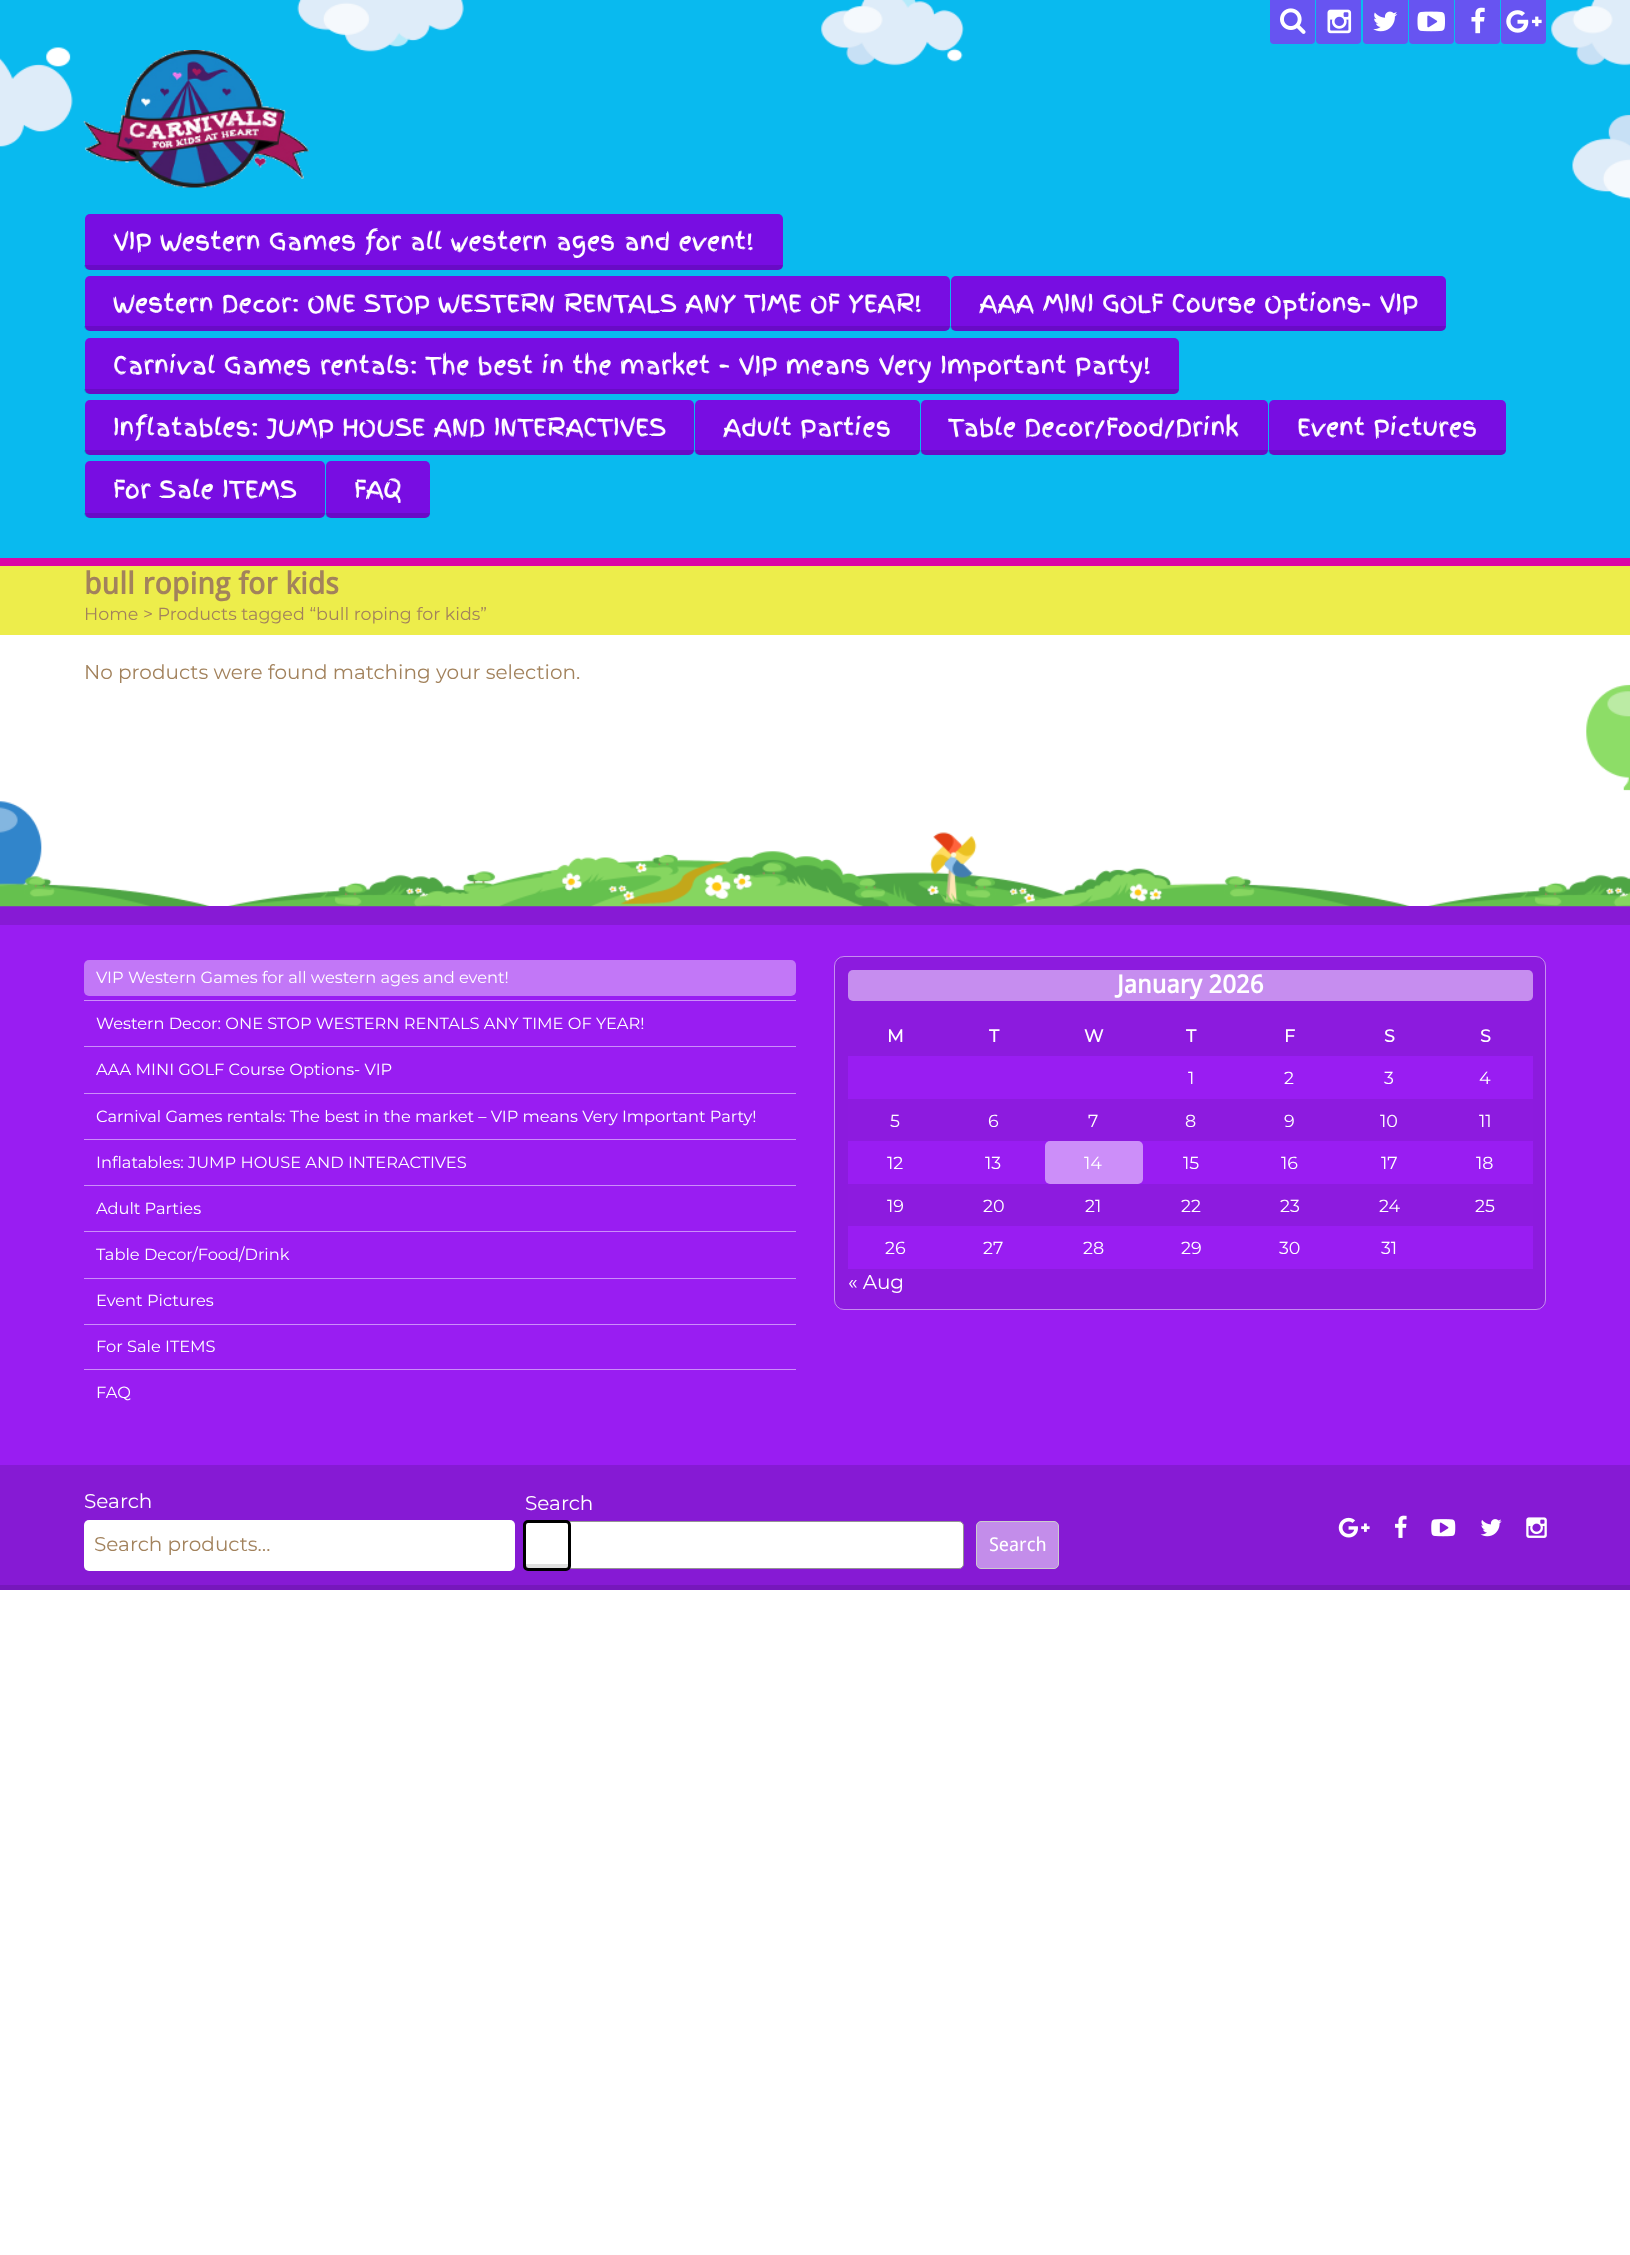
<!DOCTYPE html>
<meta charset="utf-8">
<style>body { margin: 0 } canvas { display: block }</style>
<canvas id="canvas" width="1630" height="2255"></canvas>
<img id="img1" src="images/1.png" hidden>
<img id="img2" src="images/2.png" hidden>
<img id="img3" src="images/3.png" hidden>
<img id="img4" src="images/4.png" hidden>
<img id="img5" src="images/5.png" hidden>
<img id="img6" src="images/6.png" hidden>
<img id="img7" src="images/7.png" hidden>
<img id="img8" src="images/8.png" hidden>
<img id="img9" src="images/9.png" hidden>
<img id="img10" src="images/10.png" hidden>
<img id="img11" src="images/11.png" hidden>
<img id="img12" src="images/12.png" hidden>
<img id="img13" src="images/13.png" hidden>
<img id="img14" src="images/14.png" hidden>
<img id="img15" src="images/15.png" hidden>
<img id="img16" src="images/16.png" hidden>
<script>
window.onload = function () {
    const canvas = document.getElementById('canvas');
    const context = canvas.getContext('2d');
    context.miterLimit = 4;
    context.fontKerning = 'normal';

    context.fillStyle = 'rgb(255, 255, 255)';
    context.fillRect(0, 0, 1630, 2255);
    context.fillStyle = 'rgb(9, 186, 239)';
    context.fillRect(0, 0, 1630, 558);
    context.drawImage(document.getElementById('img1'), 0, 0, 1630, 200);
    context.fillStyle = 'rgb(103, 84, 241)';
    context.beginPath();
    context.roundRect(1270, 0, 45, 44, [0, 0, 4, 4]);
    context.fill();
    context.drawImage(document.getElementById('img2'), 1280, 8, 26, 26);
    context.beginPath();
    context.roundRect(1316, 0, 45, 44, [0, 0, 4, 4]);
    context.fill();
    context.drawImage(document.getElementById('img3'), 1327, 9, 25, 25);
    context.beginPath();
    context.roundRect(1363, 0, 45, 44, [0, 0, 4, 4]);
    context.fill();
    context.drawImage(document.getElementById('img4'), 1373, 11, 25, 21);
    context.beginPath();
    context.roundRect(1409, 0, 45, 44, [0, 0, 4, 4]);
    context.fill();
    context.drawImage(document.getElementById('img5'), 1417, 11, 28, 21);
    context.beginPath();
    context.roundRect(1455, 0, 45, 44, [0, 0, 4, 4]);
    context.fill();
    context.drawImage(document.getElementById('img6'), 1471, 7, 14, 27);
    context.beginPath();
    context.roundRect(1501, 0, 45, 44, [0, 0, 4, 4]);
    context.fill();
    context.drawImage(document.getElementById('img7'), 1506, 10, 36, 23);
    context.drawImage(document.getElementById('img8'), 83, 50, 226, 138);
    context.fillStyle = 'rgb(120, 13, 226)';
    context.beginPath();
    context.roundRect(85, 214, 698, 56, 5);
    context.fill();
    context.fillStyle = 'rgba(0, 0, 0, 0.12)';
    context.beginPath();
    context.roundRect(84, 265, 699, 5, [0, 0, 5, 5]);
    context.fill();
    context.fillStyle = 'rgb(120, 13, 226)';
    context.beginPath();
    context.roundRect(85, 276, 865, 55, 5);
    context.fill();
    context.fillStyle = 'rgba(0, 0, 0, 0.12)';
    context.beginPath();
    context.roundRect(84, 326, 866, 5, [0, 0, 5, 5]);
    context.fill();
    context.fillStyle = 'rgb(120, 13, 226)';
    context.beginPath();
    context.roundRect(951, 276, 495, 55, 5);
    context.fill();
    context.fillStyle = 'rgba(0, 0, 0, 0.12)';
    context.beginPath();
    context.roundRect(950, 326, 496, 5, [0, 0, 5, 5]);
    context.fill();
    context.fillStyle = 'rgb(120, 13, 226)';
    context.beginPath();
    context.roundRect(85, 338, 1094, 56, 5);
    context.fill();
    context.fillStyle = 'rgba(0, 0, 0, 0.12)';
    context.beginPath();
    context.roundRect(84, 389, 1095, 5, [0, 0, 5, 5]);
    context.fill();
    context.fillStyle = 'rgb(120, 13, 226)';
    context.beginPath();
    context.roundRect(85, 400, 609, 55, 5);
    context.fill();
    context.fillStyle = 'rgba(0, 0, 0, 0.12)';
    context.beginPath();
    context.roundRect(84, 450, 610, 5, [0, 0, 5, 5]);
    context.fill();
    context.fillStyle = 'rgb(120, 13, 226)';
    context.beginPath();
    context.roundRect(695, 400, 225, 55, 5);
    context.fill();
    context.fillStyle = 'rgba(0, 0, 0, 0.12)';
    context.beginPath();
    context.roundRect(694, 450, 226, 5, [0, 0, 5, 5]);
    context.fill();
    context.fillStyle = 'rgb(120, 13, 226)';
    context.beginPath();
    context.roundRect(921, 400, 347, 55, 5);
    context.fill();
    context.fillStyle = 'rgba(0, 0, 0, 0.12)';
    context.beginPath();
    context.roundRect(920, 450, 348, 5, [0, 0, 5, 5]);
    context.fill();
    context.fillStyle = 'rgb(120, 13, 226)';
    context.beginPath();
    context.roundRect(1269, 400, 237, 55, 5);
    context.fill();
    context.fillStyle = 'rgba(0, 0, 0, 0.12)';
    context.beginPath();
    context.roundRect(1268, 450, 238, 5, [0, 0, 5, 5]);
    context.fill();
    context.fillStyle = 'rgb(120, 13, 226)';
    context.beginPath();
    context.roundRect(85, 461, 240, 57, 5);
    context.fill();
    context.fillStyle = 'rgba(0, 0, 0, 0.12)';
    context.beginPath();
    context.roundRect(84, 513, 241, 5, [0, 0, 5, 5]);
    context.fill();
    context.fillStyle = 'rgb(120, 13, 226)';
    context.beginPath();
    context.roundRect(326, 461, 104, 57, 5);
    context.fill();
    context.fillStyle = 'rgba(0, 0, 0, 0.12)';
    context.beginPath();
    context.roundRect(325, 513, 105, 5, [0, 0, 5, 5]);
    context.fill();
    context.fillStyle = 'rgb(237, 237, 75)';
    context.fillRect(0, 566, 1630, 69);
    context.fillStyle = 'rgb(219, 6, 166)';
    context.fillRect(0, 558, 1630, 8);
    context.drawImage(document.getElementById('img9'), 1586, 684, 44, 107);
    context.fillStyle = 'rgb(135, 26, 213)';
    context.fillRect(0, 906, 1630, 19);
    context.drawImage(document.getElementById('img10'), 0, 801, 42, 106);
    context.drawImage(document.getElementById('img11'), 0, 832, 1630, 75);
    context.fillStyle = 'rgb(153, 29, 242)';
    context.fillRect(0, 925, 1630, 540);
    context.fillStyle = 'rgb(194, 119, 247)';
    context.beginPath();
    context.roundRect(84, 960, 712, 36, 5);
    context.fill();
    context.fillStyle = 'rgb(204, 142, 249)';
    context.fillRect(84, 1000, 712, 1);
    context.fillRect(84, 1046, 712, 1);
    context.fillRect(84, 1093, 712, 1);
    context.fillRect(84, 1139, 712, 1);
    context.fillRect(84, 1185, 712, 1);
    context.fillRect(84, 1231, 712, 1);
    context.fillRect(84, 1278, 712, 1);
    context.fillRect(84, 1324, 712, 1);
    context.fillRect(84, 1369, 712, 1);
    context.fillStyle = 'rgb(140, 27, 222)';
    context.beginPath();
    context.roundRect(834, 956, 712, 354, 10);
    context.fill();
    context.beginPath();
    context.roundRect(834.5, 956.5, 711, 353, 9.5);
    context.strokeStyle = 'rgba(255, 255, 255, 0.5)';
    context.stroke();
    context.fillStyle = 'rgb(198, 141, 239)';
    context.beginPath();
    context.roundRect(848, 970, 685, 31, 5);
    context.fill();
    context.fillStyle = 'rgb(153, 29, 242)';
    context.fillRect(848, 1056, 685, 213);
    context.fillStyle = 'rgb(141, 27, 223)';
    context.fillRect(848, 1099, 685, 42);
    context.fillRect(848, 1184, 685, 42);
    context.fillStyle = 'rgb(134, 26, 212)';
    context.fillRect(0, 1465, 1630, 120);
    context.fillStyle = 'rgb(255, 255, 255)';
    context.beginPath();
    context.roundRect(84, 1520, 431, 51, 5);
    context.fill();
    context.beginPath();
    context.roundRect(525.5, 1521.5, 438, 47, 4.5);
    context.fill();
    context.strokeStyle = 'rgb(148, 148, 148)';
    context.stroke();
    context.fillStyle = 'rgba(255, 255, 255, 0.5)';
    context.beginPath();
    context.roundRect(524.5, 1521.5, 45, 48, 3.5);
    context.fill();
    context.strokeStyle = 'rgb(0, 0, 0)';
    context.lineWidth = 3;
    context.stroke();
    context.fillStyle = 'rgba(0, 0, 0, 0.12)';
    context.beginPath();
    context.roundRect(525, 1564, 44, 5, [0, 0, 2.5, 2.5]);
    context.fill();
    context.fillStyle = 'rgb(195, 141, 234)';
    context.beginPath();
    context.roundRect(976.5, 1521.5, 82, 47, 4.5);
    context.fill();
    context.strokeStyle = 'rgb(204, 204, 204)';
    context.lineWidth = 1;
    context.stroke();
    context.fillStyle = 'rgb(118, 23, 187)';
    context.fillRect(0, 1585, 1630, 5);
    context.drawImage(document.getElementById('img12'), 1338, 1517, 32, 21);
    context.drawImage(document.getElementById('img13'), 1395, 1515, 12, 23);
    context.drawImage(document.getElementById('img14'), 1431, 1519, 25, 18);
    context.drawImage(document.getElementById('img15'), 1480, 1519, 22, 18);
    context.drawImage(document.getElementById('img16'), 1526, 1517, 21, 21);
    context.font = '23.75px Finger Paint';
    context.fillStyle = 'rgb(255, 255, 255)';
    context.fillText('VIP Western Games for all western ages and event!', 113, 250);
    context.fillText('Western Decor: ONE STOP WESTERN RENTALS ANY TIME OF YEAR!', 113, 312);
    context.fillText('AAA MINI GOLF Course Options- VIP', 979, 312);
    context.fillText('Carnival Games rentals: The best in the market – VIP means Very Important Party!', 113, 374);
    context.fillText('Inflatables: JUMP HOUSE AND INTERACTIVES', 113, 436);
    context.fillText('Adult Parties', 723, 436);
    context.fillText('Table Decor/Food/Drink', 948, 436);
    context.fillText('Event Pictures', 1297, 436);
    context.fillText('For Sale ITEMS', 113, 498);
    context.fillText('FAQ', 354, 498);
    context.font = 'bold 30px Droid Sans';
    context.fillStyle = 'rgb(162, 130, 92)';
    context.fillText('bull roping for kids', 84, 594);
    context.font = '100 17.5px Montserrat';
    context.fillText('Home > Products tagged “bull roping for kids”', 84, 620);
    context.font = '100 20px Montserrat';
    context.fillText('No products were found matching your selection.', 84, 679);
    context.font = '100 16.25px Montserrat';
    context.fillStyle = 'rgb(255, 255, 255)';
    context.fillText('VIP Western Games for all western ages and event!', 96, 983);
    context.fillText('Western Decor: ONE STOP WESTERN RENTALS ANY TIME OF YEAR!', 96, 1029);
    context.fillText('AAA MINI GOLF Course Options- VIP', 96, 1075);
    context.fillText('Carnival Games rentals: The best in the market – VIP means Very Important Party!', 96, 1122);
    context.fillText('Inflatables: JUMP HOUSE AND INTERACTIVES', 96, 1168);
    context.fillText('Adult Parties', 96, 1214);
    context.fillText('Table Decor/Food/Drink', 96, 1260);
    context.fillText('Event Pictures', 96, 1306);
    context.fillText('For Sale ITEMS', 96, 1352);
    context.fillText('FAQ', 96, 1398);
    context.font = 'bold 25px Droid Sans';
    context.fillText('January 2026', 1117, 993);
    context.font = 'bold 17.5px Montserrat';
    context.fillText('M', 887, 1042);
    context.fillText('T', 989, 1042);
    context.fillText('W', 1084, 1042);
    context.fillText('T', 1186, 1042);
    context.fillText('F', 1284, 1042);
    context.fillText('S', 1384, 1042);
    context.fillText('S', 1480, 1042);
    context.font = '100 17.5px Montserrat';
    context.fillText('1', 1188, 1084);
    context.fillText('2', 1284, 1084);
    context.fillText('3', 1384, 1084);
    context.fillText('4', 1479, 1084);
    context.fillText('5', 890, 1127);
    context.fillText('6', 988, 1127);
    context.fillText('7', 1088, 1127);
    context.fillText('8', 1185, 1127);
    context.fillText('9', 1284, 1127);
    context.fillText('10', 1380, 1127);
    context.fillText('11', 1479, 1127);
    context.fillText('12', 887, 1169);
    context.fillText('13', 985, 1169);
    context.fillText('14', 1084, 1169);
    context.fillStyle = 'rgba(255, 255, 255, 0.5)';
    context.beginPath();
    context.roundRect(1045, 1141, 98, 43, 5);
    context.fill();
    context.fillStyle = 'rgb(255, 255, 255)';
    context.fillText('15', 1183, 1169);
    context.fillText('16', 1281, 1169);
    context.fillText('17', 1381, 1169);
    context.fillText('18', 1476, 1169);
    context.fillText('19', 887, 1212);
    context.fillText('20', 983, 1212);
    context.fillText('21', 1085, 1212);
    context.fillText('22', 1181, 1212);
    context.fillText('23', 1280, 1212);
    context.fillText('24', 1379, 1212);
    context.fillText('25', 1475, 1212);
    context.fillText('26', 885, 1254);
    context.fillText('27', 983, 1254);
    context.fillText('28', 1083, 1254);
    context.fillText('29', 1181, 1254);
    context.fillText('30', 1279, 1254);
    context.fillText('31', 1381, 1254);
    context.font = '100 20px Montserrat';
    context.fillText('« Aug', 848, 1289);
    context.fillText('Search', 84, 1508);
    context.fillStyle = 'rgb(162, 130, 92)';
    context.fillText('Search products…', 94, 1551);
    context.fillStyle = 'rgb(255, 255, 255)';
    context.fillText('Search', 525, 1510);
    context.font = '19px Droid Sans';
    context.fillText('Search', 989, 1551);
};
</script>
